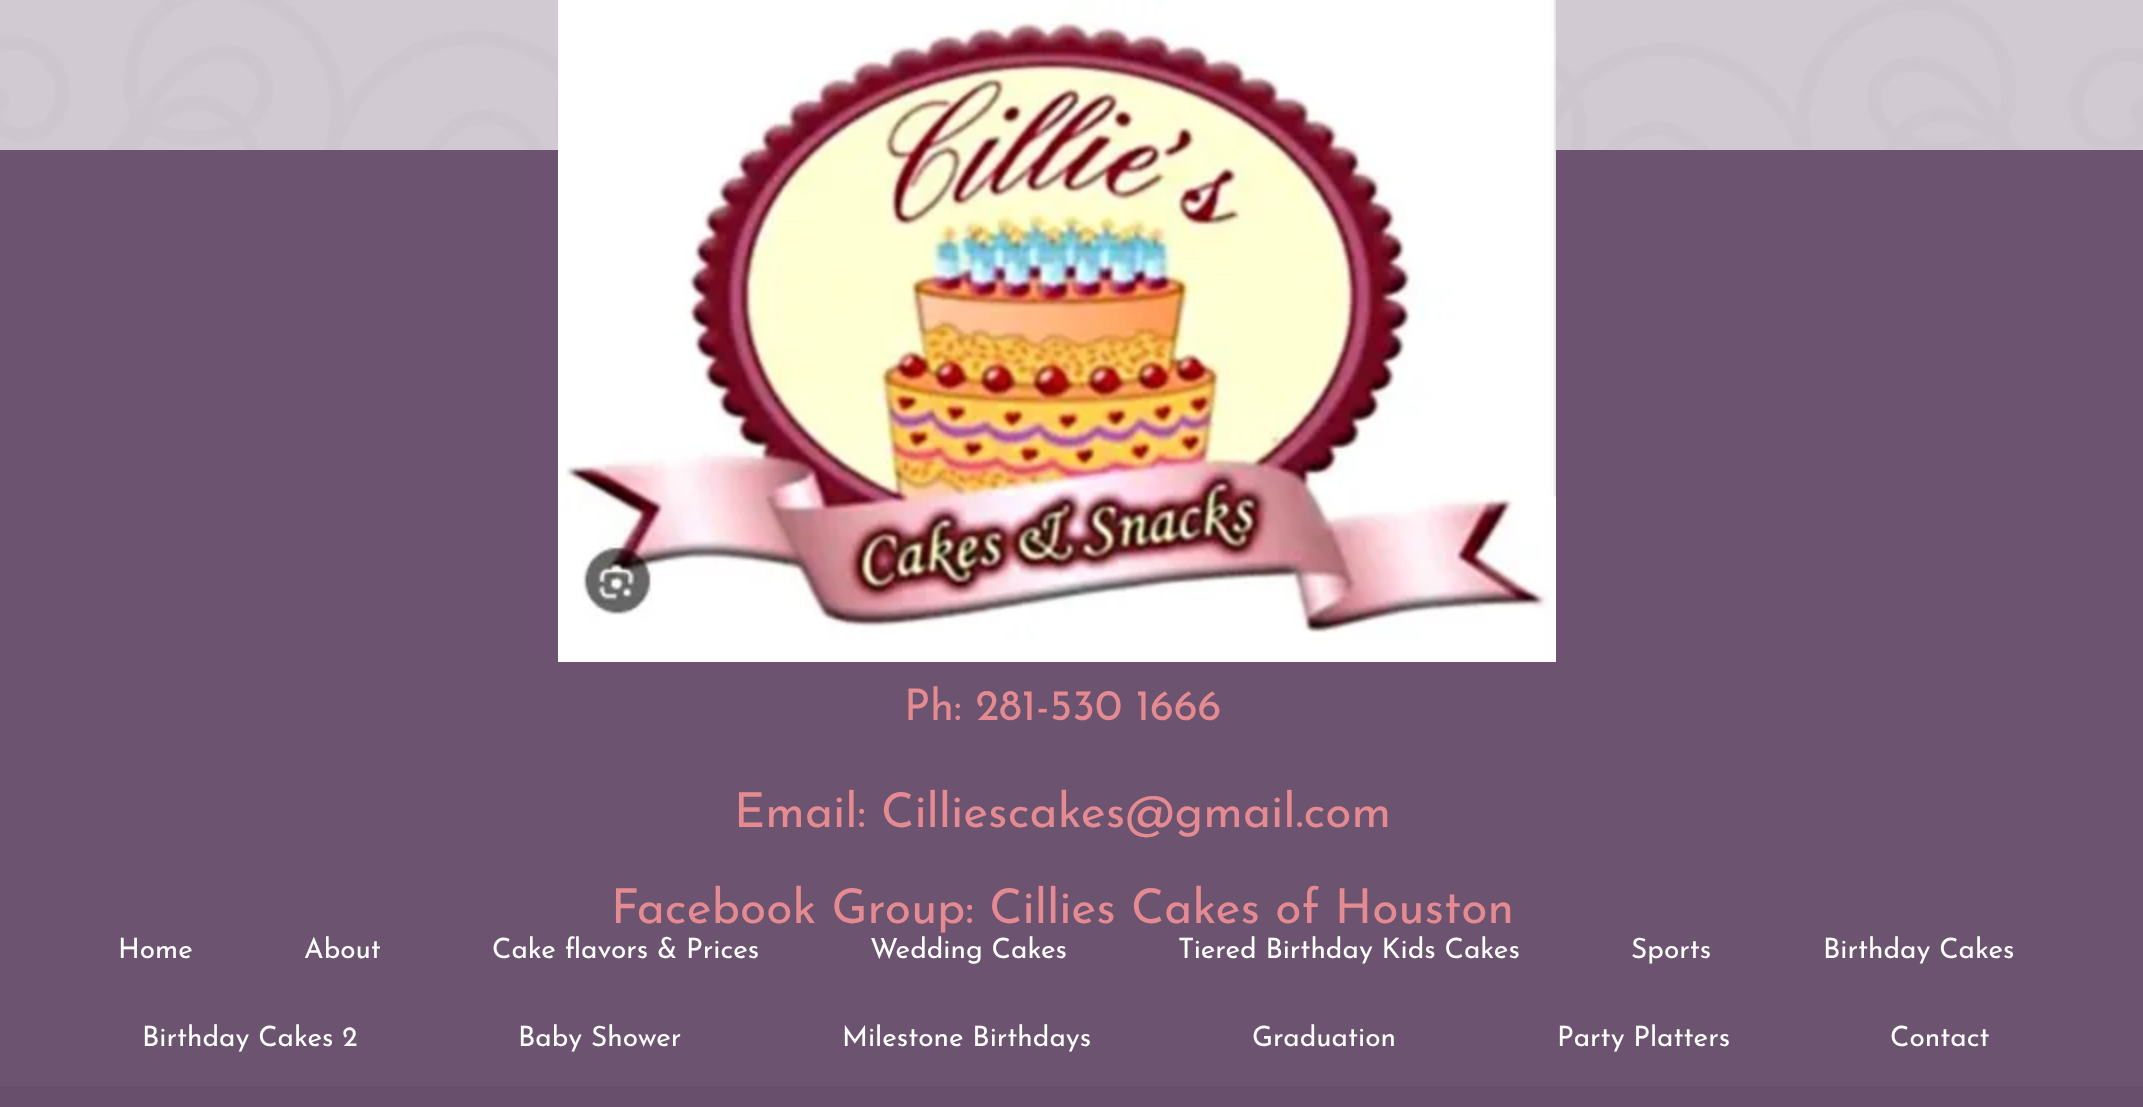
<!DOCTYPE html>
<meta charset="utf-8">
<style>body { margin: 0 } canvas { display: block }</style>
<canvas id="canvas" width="2143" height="1107"></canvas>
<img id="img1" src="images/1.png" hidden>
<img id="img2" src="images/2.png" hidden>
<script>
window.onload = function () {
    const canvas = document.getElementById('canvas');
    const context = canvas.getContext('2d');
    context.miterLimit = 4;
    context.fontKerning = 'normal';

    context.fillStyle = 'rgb(255, 255, 255)';
    context.fillRect(0, 0, 2143, 1107);
    context.drawImage(document.getElementById('img1'), 0, 0, 2143, 1107);
    context.fillStyle = 'rgba(104, 80, 108, 0.97)';
    context.fillRect(0, 150, 2143, 957);
    context.drawImage(document.getElementById('img2'), 558, 0, 998, 662);
    context.font = '43.5px Josefin Sans';
    context.fillStyle = 'rgb(228, 138, 144)';
    context.fillText('Ph: 281-530 1666', 904, 720);
    context.font = '48px Josefin Sans';
    context.fillText('Email: Cilliescakes@gmail.com', 734, 827);
    context.fillText('Facebook Group: Cillies Cakes of Houston', 611, 923);
    context.font = '28px Josefin Sans';
    context.fillStyle = 'rgb(255, 255, 255)';
    context.fillText('Home', 118, 958);
    context.fillText('About', 304, 958);
    context.fillText('Cake flavors & Prices', 492, 958);
    context.fillText('Wedding Cakes', 870, 958);
    context.fillText('Tiered Birthday Kids Cakes', 1178, 958);
    context.fillText('Sports', 1631, 958);
    context.fillText('Birthday Cakes', 1823, 958);
    context.fillText('Birthday Cakes 2', 142, 1046);
    context.fillText('Baby Shower', 518, 1046);
    context.fillText('Milestone Birthdays', 842, 1046);
    context.fillText('Graduation', 1252, 1046);
    context.fillText('Party Platters', 1557, 1046);
    context.fillText('Contact', 1890, 1046);
};
</script>
